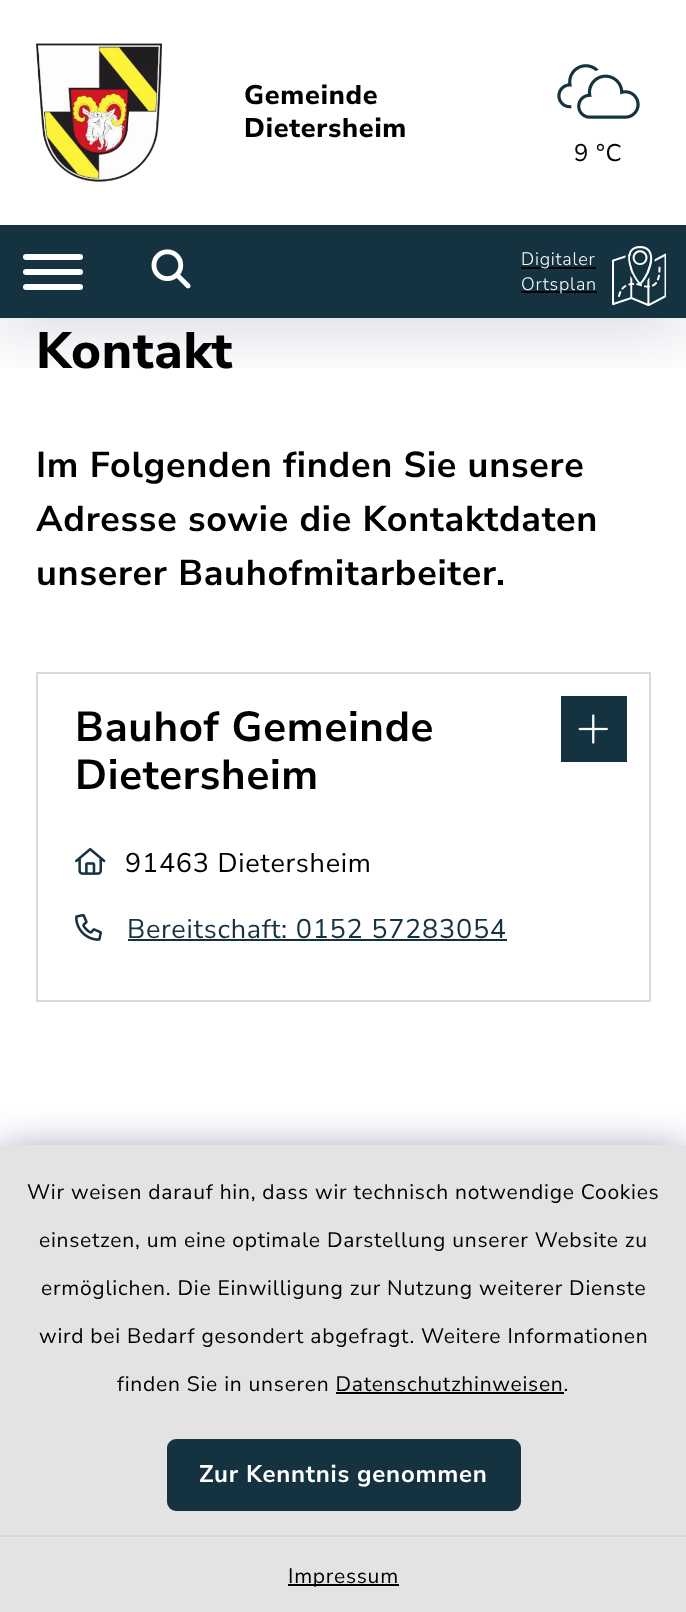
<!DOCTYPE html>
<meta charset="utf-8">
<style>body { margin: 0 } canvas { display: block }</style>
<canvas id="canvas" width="686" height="1612"></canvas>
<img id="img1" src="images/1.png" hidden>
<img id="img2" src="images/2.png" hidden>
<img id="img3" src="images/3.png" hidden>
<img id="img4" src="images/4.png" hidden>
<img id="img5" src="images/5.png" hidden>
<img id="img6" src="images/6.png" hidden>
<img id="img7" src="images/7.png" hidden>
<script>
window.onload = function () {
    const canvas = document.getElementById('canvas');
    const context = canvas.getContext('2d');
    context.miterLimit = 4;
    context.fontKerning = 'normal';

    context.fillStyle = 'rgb(255, 255, 255)';
    context.fillRect(0, 0, 686, 1612);
    context.save();
    context.beginPath();
    context.rect(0, 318, 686, 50);
    context.clip();
    context.fillStyle = 'rgba(4, 15, 73, 0.16)';
    context.filter = 'blur(33px)';
    context.beginPath();
    context.rect(0, 12, 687, 318);
    context.fill();
    context.filter = 'none';
    context.restore();
    context.drawImage(document.getElementById('img1'), 36, 43, 126, 139);
    context.drawImage(document.getElementById('img2'), 557, 64, 83, 55);
    context.fillStyle = 'rgb(21, 50, 65)';
    context.fillRect(0, 225, 686, 93);
    context.fillStyle = 'rgb(255, 255, 255)';
    context.beginPath();
    context.roundRect(23, 269, 60, 6, 3);
    context.fill();
    context.beginPath();
    context.roundRect(23, 254, 60, 6, 3);
    context.fill();
    context.beginPath();
    context.roundRect(23, 284, 60, 6, 3);
    context.fill();
    context.drawImage(document.getElementById('img3'), 151, 249, 40, 40);
    context.fillStyle = 'rgb(0, 0, 0)';
    context.fillRect(521, 267, 75, 2);
    context.fillRect(521, 291, 76, 2);
    context.drawImage(document.getElementById('img4'), 612, 246, 54, 60);
    context.strokeStyle = 'rgb(217, 217, 217)';
    context.lineWidth = 2;
    context.strokeRect(37, 673, 613, 328);
    context.drawImage(document.getElementById('img5'), 75, 847, 31, 28);
    context.drawImage(document.getElementById('img6'), 75, 913, 27, 28);
    context.fillStyle = 'rgb(21, 50, 65)';
    context.fillRect(128, 939, 379, 2);
    context.fillRect(561, 696, 66, 66);
    context.drawImage(document.getElementById('img7'), 578, 714, 30, 30);
    context.fillStyle = 'rgba(4, 15, 73, 0.44)';
    context.filter = 'blur(21px)';
    context.beginPath();
    context.rect(0, 1151, 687, 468);
    context.fill();
    context.filter = 'none';
    context.fillStyle = 'rgb(227, 227, 227)';
    context.fillRect(0, 1145, 686, 467);
    context.fillStyle = 'rgb(217, 217, 217)';
    context.fillRect(0, 1535, 686, 2);
    context.fillStyle = 'rgb(0, 0, 0)';
    context.fillRect(336, 1392, 228, 2);
    context.fillStyle = 'rgb(21, 50, 65)';
    context.beginPath();
    context.roundRect(168.5, 1440.5, 351, 69, 7.5);
    context.fill();
    context.strokeStyle = 'rgb(21, 50, 65)';
    context.lineWidth = 3;
    context.stroke();
    context.fillStyle = 'rgb(233, 233, 233)';
    context.fillRect(0, 1537, 686, 1);
    context.fillStyle = 'rgb(0, 0, 0)';
    context.fillRect(288, 1584, 111, 2);
    context.letterSpacing = '0.75px';
    context.font = '800 27px Nunito Sans';
    context.fillText('Gemeinde', 244, 104);
    context.fillText('Dietersheim', 244, 137);
    context.font = '24px Nunito Sans';
    context.fillText('9 °C', 574, 161);
    context.font = '300 18px Nunito Sans';
    context.fillStyle = 'rgb(255, 255, 255)';
    context.fillText('Digitaler', 521, 265);
    context.fillText('Ortsplan', 521, 290);
    context.font = '800 51px Nunito Sans';
    context.fillStyle = 'rgb(0, 0, 0)';
    context.fillText('Kontakt', 36, 368);
    context.font = 'bold 36px Nunito Sans';
    context.fillText('Im Folgenden finden Sie unsere', 36, 477);
    context.fillText('Adresse sowie die Kontaktdaten', 36, 531);
    context.fillText('unserer Bauhofmitarbeiter.', 36, 585);
    context.font = 'bold 42px Nunito Sans';
    context.fillText('Bauhof Gemeinde', 75, 741);
    context.fillText('Dietersheim', 75, 789);
    context.font = '27px Nunito Sans';
    context.fillText('91463 Dietersheim', 125, 872);
    context.fillStyle = 'rgb(21, 50, 65)';
    context.fillText('Bereitschaft: 0152 57283054', 127, 938);
    context.font = '21px Nunito Sans';
    context.fillStyle = 'rgb(0, 0, 0)';
    context.fillText('Wir weisen darauf hin, dass wir technisch notwendige Cookies', 27, 1199);
    context.fillText('einsetzen, um eine optimale Darstellung unserer Website zu', 39, 1247);
    context.fillText('ermöglichen. Die Einwilligung zur Nutzung weiterer Dienste', 41, 1295);
    context.fillText('wird bei Bedarf gesondert abgefragt. Weitere Informationen', 39, 1343);
    context.fillText('finden Sie in unseren Datenschutzhinweisen.', 117, 1391);
    context.font = 'bold 24px Nunito Sans';
    context.fillStyle = 'rgb(255, 255, 255)';
    context.fillText('Zur Kenntnis genommen', 199, 1482);
    context.font = '21px Nunito Sans';
    context.fillStyle = 'rgb(0, 0, 0)';
    context.fillText('Impressum', 288, 1583);
};
</script>
